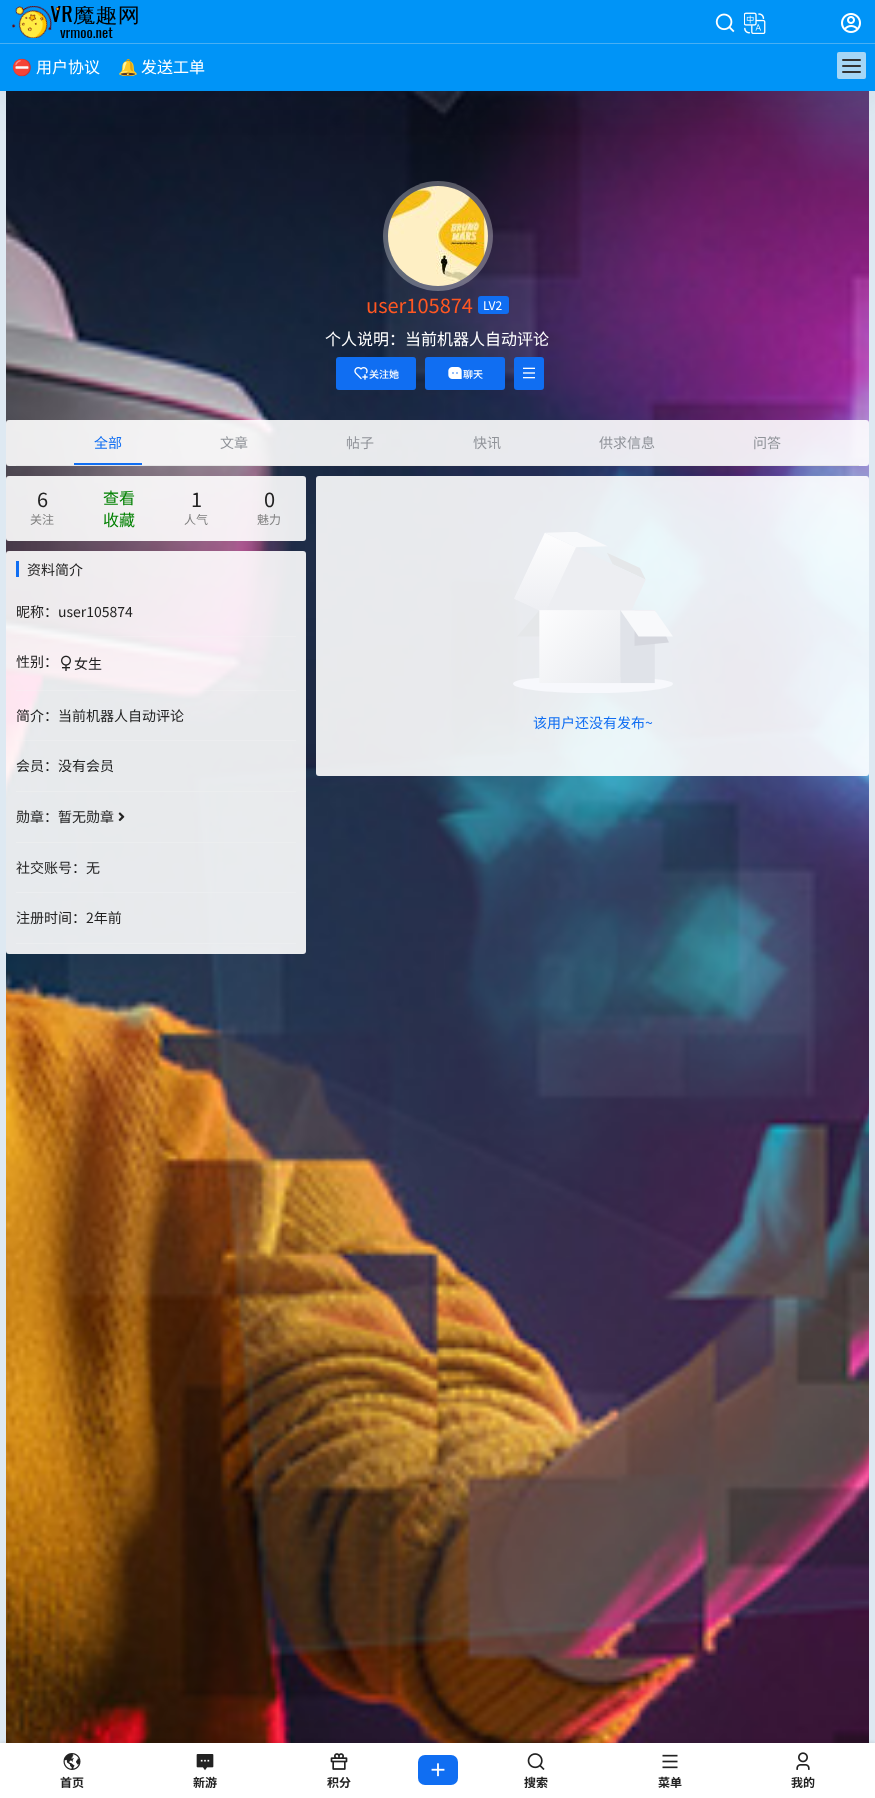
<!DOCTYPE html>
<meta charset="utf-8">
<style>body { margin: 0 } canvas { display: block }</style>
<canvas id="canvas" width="875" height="1798"></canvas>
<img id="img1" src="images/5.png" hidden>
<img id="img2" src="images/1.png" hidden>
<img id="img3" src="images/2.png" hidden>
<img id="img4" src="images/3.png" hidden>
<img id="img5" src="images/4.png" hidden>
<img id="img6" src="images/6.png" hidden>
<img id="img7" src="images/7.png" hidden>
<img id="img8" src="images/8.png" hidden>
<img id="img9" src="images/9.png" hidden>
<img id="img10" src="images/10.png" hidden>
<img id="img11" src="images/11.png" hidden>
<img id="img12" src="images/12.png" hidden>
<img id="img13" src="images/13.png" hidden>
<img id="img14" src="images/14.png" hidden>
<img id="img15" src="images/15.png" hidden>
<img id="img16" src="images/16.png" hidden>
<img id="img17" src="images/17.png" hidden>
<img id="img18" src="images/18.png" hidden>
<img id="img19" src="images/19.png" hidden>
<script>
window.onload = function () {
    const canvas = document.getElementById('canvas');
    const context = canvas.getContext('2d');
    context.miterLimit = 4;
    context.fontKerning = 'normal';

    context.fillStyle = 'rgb(222, 233, 242)';
    context.fillRect(0, 0, 875, 1798);
    context.drawImage(document.getElementById('img1'), 6, 91, 863, 1652);
    context.fillStyle = 'rgba(17, 58, 93, 0.1)';
    context.filter = 'blur(20px)';
    context.beginPath();
    context.rect(0, 5, 875, 91);
    context.fill();
    context.filter = 'none';
    context.fillStyle = 'rgb(0, 148, 247)';
    context.fillRect(0, 0, 875, 91);
    context.fillStyle = 'rgb(73, 175, 243)';
    context.fillRect(0, 43, 875, 1);
    context.drawImage(document.getElementById('img2'), 12, 6, 126, 32);
    context.drawImage(document.getElementById('img3'), 715, 13, 20, 20);
    context.drawImage(document.getElementById('img4'), 744, 12, 22, 22);
    context.drawImage(document.getElementById('img5'), 841, 13, 20, 20);
    context.fillStyle = 'rgb(165, 214, 246)';
    context.beginPath();
    context.roundRect(837, 52, 29, 27, 2);
    context.fill();
    context.fillStyle = 'rgb(51, 51, 51)';
    context.beginPath();
    context.roundRect(842, 59, 19, 2, 1);
    context.fill();
    context.beginPath();
    context.roundRect(842, 65, 19, 2, 1);
    context.fill();
    context.beginPath();
    context.roundRect(842, 71, 19, 2, 1);
    context.fill();
    context.fillStyle = 'rgba(255, 255, 255, 0.3)';
    context.beginPath();
    context.arc(438, 236, 55, 0, 2 * Math.PI);
    context.fill();
    context.drawImage(document.getElementById('img6'), 388, 186, 100, 100);
    context.fillStyle = 'rgb(16, 110, 242)';
    context.beginPath();
    context.roundRect(478, 296, 31, 18, 3);
    context.fill();
    context.beginPath();
    context.roundRect(336, 357, 80, 33, 3);
    context.fill();
    context.drawImage(document.getElementById('img7'), 354, 367, 14, 13);
    context.beginPath();
    context.roundRect(425, 357, 80, 33, 3);
    context.fill();
    context.drawImage(document.getElementById('img8'), 448, 367, 14, 12);
    context.beginPath();
    context.roundRect(514, 357, 30, 33, 3);
    context.fill();
    context.drawImage(document.getElementById('img9'), 523, 367, 12, 12);
    context.fillStyle = 'rgba(255, 255, 255, 0.9)';
    context.beginPath();
    context.roundRect(6, 420, 863, 46, 3);
    context.fill();
    context.fillStyle = 'rgb(230, 230, 230)';
    context.fillRect(16, 465, 843, 1);
    context.fillStyle = 'rgb(16, 110, 242)';
    context.fillRect(74, 463, 68, 2);
    context.fillStyle = 'rgba(255, 255, 255, 0.9)';
    context.beginPath();
    context.roundRect(6, 476, 300, 65, 3);
    context.fill();
    context.beginPath();
    context.roundRect(6, 551, 300, 403, 3);
    context.fill();
    context.fillStyle = 'rgb(16, 110, 242)';
    context.fillRect(16, 561, 3, 16);
    context.fillStyle = 'rgba(246, 246, 246, 0.3)';
    context.fillRect(16, 636, 280, 1);
    context.fillRect(16, 690, 280, 1);
    context.drawImage(document.getElementById('img10'), 61, 655, 10, 16);
    context.fillRect(16, 740, 280, 1);
    context.fillStyle = 'rgb(236, 238, 239)';
    context.fillRect(16, 791, 280, 1);
    context.fillRect(16, 842, 280, 1);
    context.drawImage(document.getElementById('img11'), 118, 812, 7, 10);
    context.fillStyle = 'rgb(236, 238, 240)';
    context.fillRect(16, 892, 280, 1);
    context.fillRect(16, 943, 280, 1);
    context.fillStyle = 'rgba(255, 255, 255, 0.9)';
    context.beginPath();
    context.roundRect(316, 476, 553, 300, 3);
    context.fill();
    context.drawImage(document.getElementById('img12'), 513, 532, 160, 161);
    context.fillStyle = 'rgba(26, 26, 26, 0.1)';
    context.filter = 'blur(1.5px)';
    context.beginPath();
    context.rect(0, 1742, 875, 55);
    context.fill();
    context.filter = 'none';
    context.fillStyle = 'rgb(255, 255, 255)';
    context.fillRect(0, 1743, 875, 55);
    context.drawImage(document.getElementById('img13'), 63, 1753, 18, 17);
    context.drawImage(document.getElementById('img14'), 196, 1754, 18, 17);
    context.drawImage(document.getElementById('img15'), 330, 1753, 18, 17);
    context.fillStyle = 'rgb(16, 110, 242)';
    context.beginPath();
    context.roundRect(418, 1755, 40, 30, 7);
    context.fill();
    context.drawImage(document.getElementById('img16'), 431, 1763, 14, 14);
    context.drawImage(document.getElementById('img17'), 527, 1753, 18, 17);
    context.drawImage(document.getElementById('img18'), 662, 1754, 16, 15);
    context.drawImage(document.getElementById('img19'), 796, 1752, 14, 18);
    context.font = '16px Noto Color Emoji';
    context.fillStyle = 'rgb(255, 255, 255)';
    context.fillText('⛔️', 12, 73);
    context.font = '16px Noto Sans CJK SC';
    context.fillText('用户协议', 36, 73);
    context.font = '16px Noto Color Emoji';
    context.fillText('🔔', 118, 73);
    context.font = '16px Noto Sans CJK SC';
    context.fillText('发送工单', 141, 73);
    context.font = '20px Noto Sans CJK SC';
    context.fillStyle = 'rgb(255, 87, 34)';
    context.fillText('user105874', 366, 313);
    context.font = '12px Noto Sans CJK SC';
    context.fillStyle = 'rgb(255, 255, 255)';
    context.fillText('LV2', 483, 310);
    context.font = '16px Noto Sans CJK SC';
    context.fillText('个人说明：当前机器人自动评论', 325, 345);
    context.font = '500 10px Noto Sans CJK SC';
    context.fillText('关注她', 369, 378);
    context.fillText('聊天', 463, 378);
    context.font = '14px Noto Sans CJK SC';
    context.fillStyle = 'rgb(16, 110, 242)';
    context.fillText('全部', 94, 448);
    context.fillStyle = 'rgb(144, 147, 153)';
    context.fillText('文章', 220, 448);
    context.fillText('帖子', 346, 448);
    context.fillText('快讯', 473, 448);
    context.fillText('供求信息', 599, 448);
    context.fillText('问答', 753, 448);
    context.font = '20px Noto Sans CJK SC';
    context.fillStyle = 'rgb(34, 34, 34)';
    context.fillText('6', 37, 507);
    context.font = '12px Noto Sans CJK SC';
    context.fillStyle = 'rgb(128, 128, 128)';
    context.fillText('关注', 30, 524);
    context.font = '16px Noto Sans CJK SC';
    context.fillStyle = 'rgb(0, 128, 0)';
    context.fillText('查看', 103, 504);
    context.fillText('收藏', 103, 526);
    context.font = '20px Noto Sans CJK SC';
    context.fillStyle = 'rgb(34, 34, 34)';
    context.fillText('1', 191, 507);
    context.font = '12px Noto Sans CJK SC';
    context.fillStyle = 'rgb(128, 128, 128)';
    context.fillText('人气', 184, 524);
    context.font = '20px Noto Sans CJK SC';
    context.fillStyle = 'rgb(34, 34, 34)';
    context.fillText('0', 264, 507);
    context.font = '12px Noto Sans CJK SC';
    context.fillStyle = 'rgb(128, 128, 128)';
    context.fillText('魅力', 257, 524);
    context.font = '14px Noto Sans CJK SC';
    context.fillStyle = 'rgb(34, 34, 34)';
    context.fillText('资料简介', 27, 575);
    context.fillText('昵称：user105874', 16, 617);
    context.fillText('性别：', 16, 667);
    context.fillText('女生', 74, 669);
    context.fillText('简介：当前机器人自动评论', 16, 721);
    context.fillText('会员：没有会员', 16, 771);
    context.fillText('勋章：暂无勋章', 16, 822);
    context.fillText('社交账号：无', 16, 873);
    context.fillText('注册时间：2年前', 16, 923);
    context.fillStyle = 'rgb(16, 110, 242)';
    context.fillText('该用户还没有发布~', 533, 728);
    context.font = 'bold 12px Noto Sans CJK SC';
    context.fillStyle = 'rgb(34, 34, 34)';
    context.fillText('首页', 60, 1787);
    context.fillText('新游', 193, 1787);
    context.fillText('积分', 327, 1787);
    context.fillText('搜索', 524, 1787);
    context.fillText('菜单', 658, 1787);
    context.fillText('我的', 791, 1787);
};
</script>
